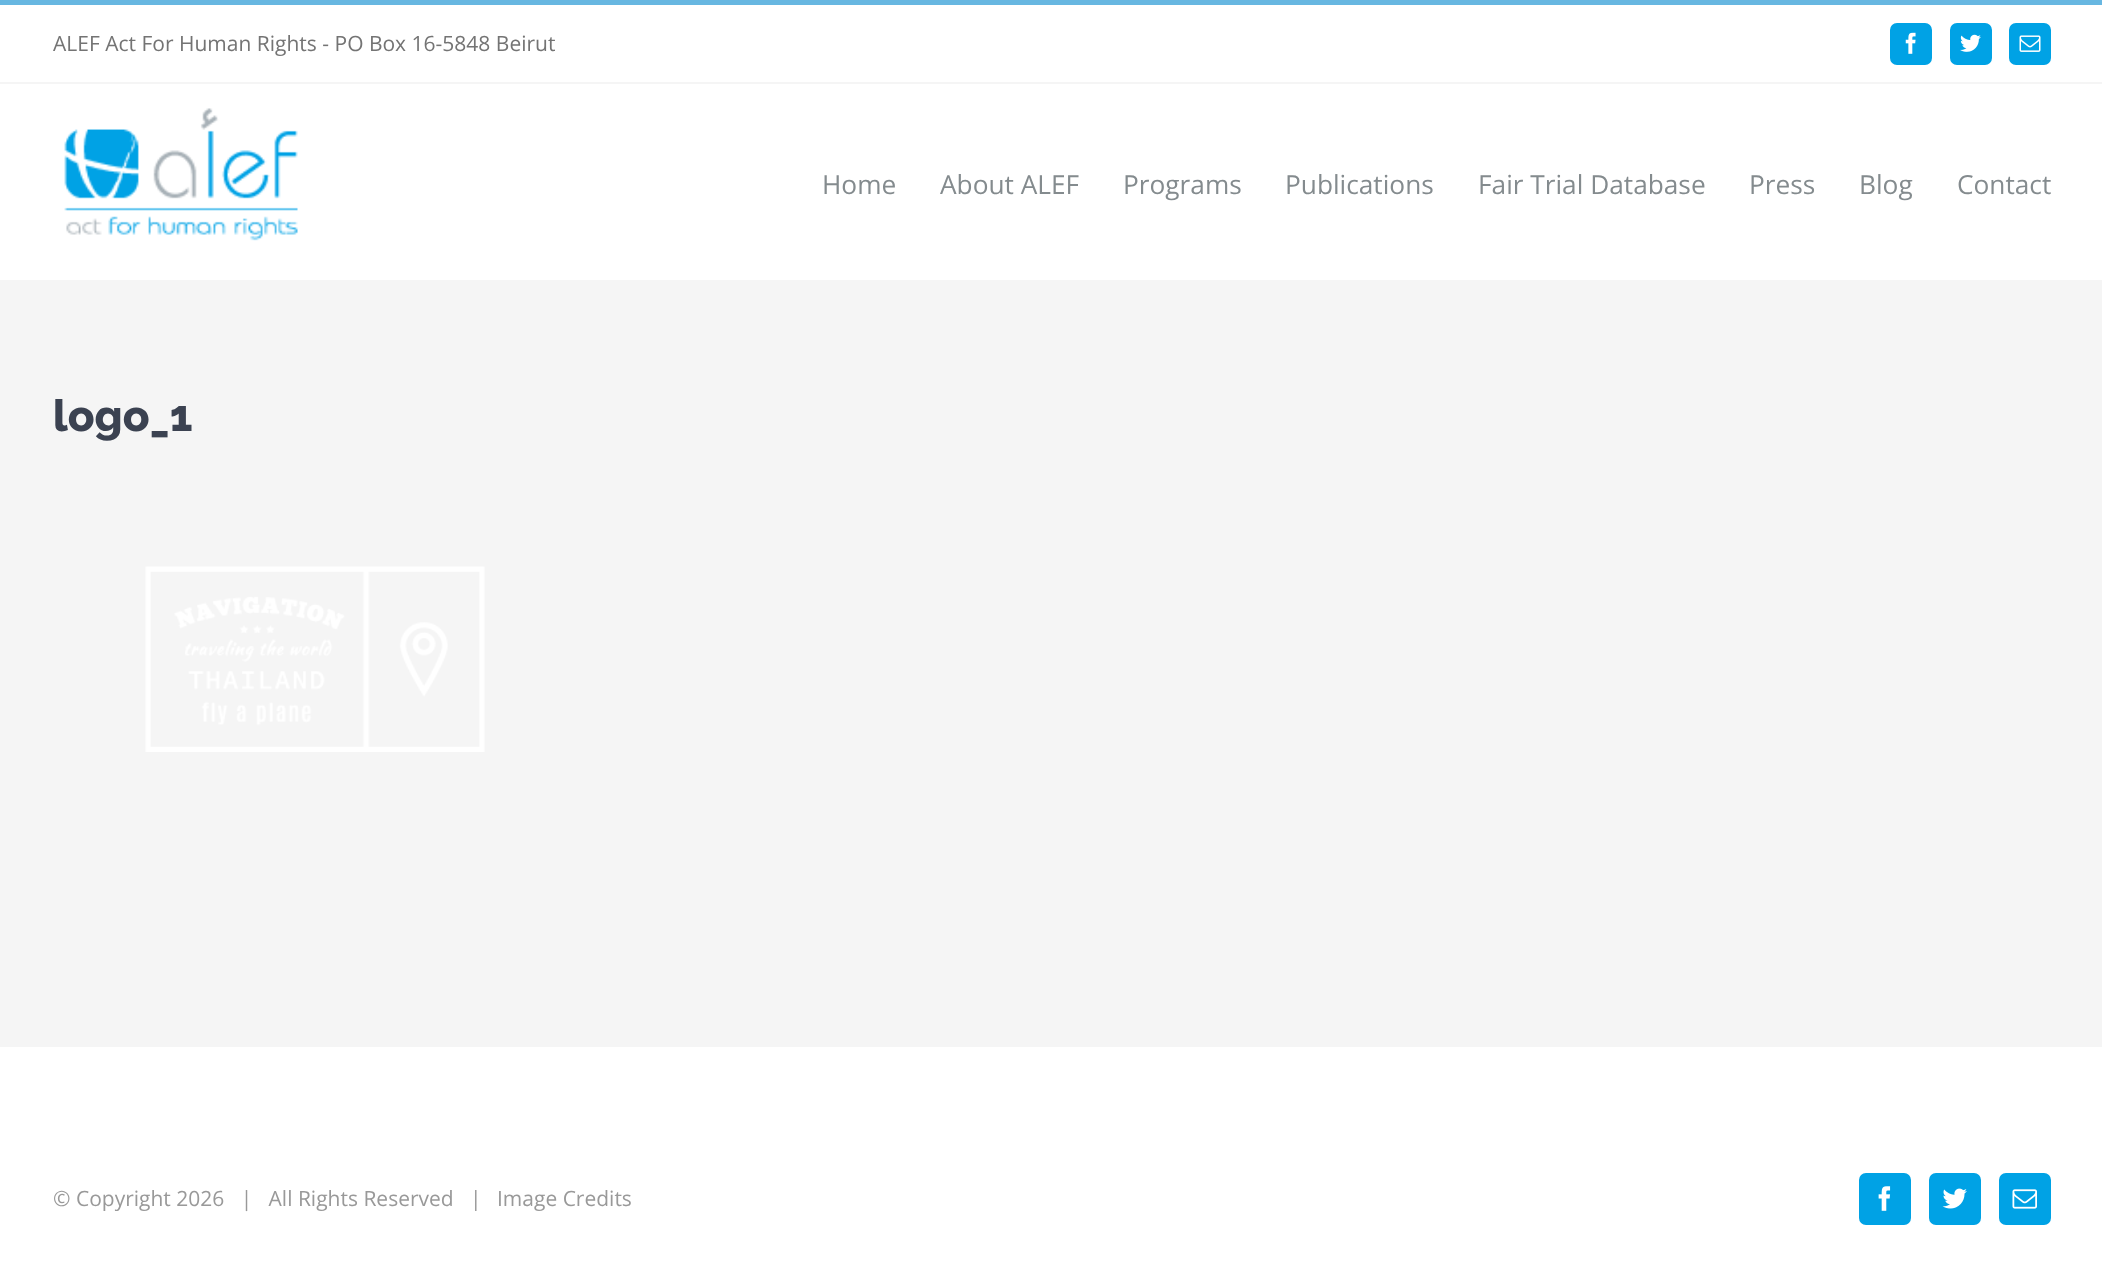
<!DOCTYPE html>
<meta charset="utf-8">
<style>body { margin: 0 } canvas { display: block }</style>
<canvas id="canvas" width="2102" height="1265"></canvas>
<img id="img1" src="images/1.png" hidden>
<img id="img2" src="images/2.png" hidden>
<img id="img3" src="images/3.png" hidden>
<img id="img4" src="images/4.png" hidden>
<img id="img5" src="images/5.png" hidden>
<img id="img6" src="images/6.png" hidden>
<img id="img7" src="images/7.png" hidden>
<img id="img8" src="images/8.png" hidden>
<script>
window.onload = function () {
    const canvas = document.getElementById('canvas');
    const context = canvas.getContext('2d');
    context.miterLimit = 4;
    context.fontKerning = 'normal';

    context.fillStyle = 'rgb(245, 245, 245)';
    context.fillRect(0, 0, 2102, 1265);
    context.fillStyle = 'rgb(255, 255, 255)';
    context.fillRect(0, 5, 2102, 77);
    context.fillStyle = 'rgb(103, 183, 225)';
    context.fillRect(0, 0, 2102, 5);
    context.fillStyle = 'rgb(0, 162, 229)';
    context.beginPath();
    context.roundRect(1891, 24, 40, 40, 6);
    context.fill();
    context.strokeStyle = 'rgb(0, 162, 229)';
    context.lineWidth = 2;
    context.stroke();
    context.drawImage(document.getElementById('img1'), 1905, 32, 11, 22);
    context.beginPath();
    context.roundRect(1951, 24, 40, 40, 6);
    context.fill();
    context.stroke();
    context.drawImage(document.getElementById('img2'), 1960, 34, 21, 18);
    context.beginPath();
    context.roundRect(2010, 24, 40, 40, 6);
    context.fill();
    context.stroke();
    context.drawImage(document.getElementById('img3'), 2019, 35, 22, 17);
    context.fillStyle = 'rgb(255, 255, 255)';
    context.fillRect(0, 84, 2102, 196);
    context.drawImage(document.getElementById('img4'), 64, 108, 234, 133);
    context.drawImage(document.getElementById('img5'), 145, 566, 340, 186);
    context.fillRect(0, 1047, 2102, 218);
    context.fillStyle = 'rgb(0, 162, 229)';
    context.beginPath();
    context.roundRect(1860, 1174, 50, 50, 6);
    context.fill();
    context.stroke();
    context.drawImage(document.getElementById('img6'), 1878, 1186, 13, 25);
    context.beginPath();
    context.roundRect(1930, 1174, 50, 50, 6);
    context.fill();
    context.stroke();
    context.drawImage(document.getElementById('img7'), 1942, 1188, 25, 21);
    context.beginPath();
    context.roundRect(2000, 1174, 50, 50, 6);
    context.fill();
    context.stroke();
    context.drawImage(document.getElementById('img8'), 2012, 1189, 25, 20);
    context.font = '21px Open Sans';
    context.fillStyle = 'rgb(116, 116, 116)';
    context.fillText('ALEF Act For Human Rights - PO Box 16-5848 Beirut', 53, 51);
    context.font = '26.25px Open Sans';
    context.fillStyle = 'rgb(132, 139, 142)';
    context.fillText('Home', 822, 194);
    context.fillText('About ALEF', 940, 194);
    context.fillText('Programs', 1123, 194);
    context.fillText('Publications', 1285, 194);
    context.fillText('Fair Trial Database', 1478, 194);
    context.fillText('Press', 1749, 194);
    context.fillText('Blog', 1859, 194);
    context.fillText('Contact', 1957, 194);
    context.font = '100 44px Raleway';
    context.fillStyle = 'rgb(59, 66, 81)';
    context.fillText('logo_1', 53, 431);
    context.font = '21px Open Sans';
    context.fillStyle = 'rgb(153, 153, 153)';
    context.fillText('© Copyright 2026   |   All Rights Reserved   |', 53, 1206);
    context.fillText('Image Credits', 497, 1206);
};
</script>
